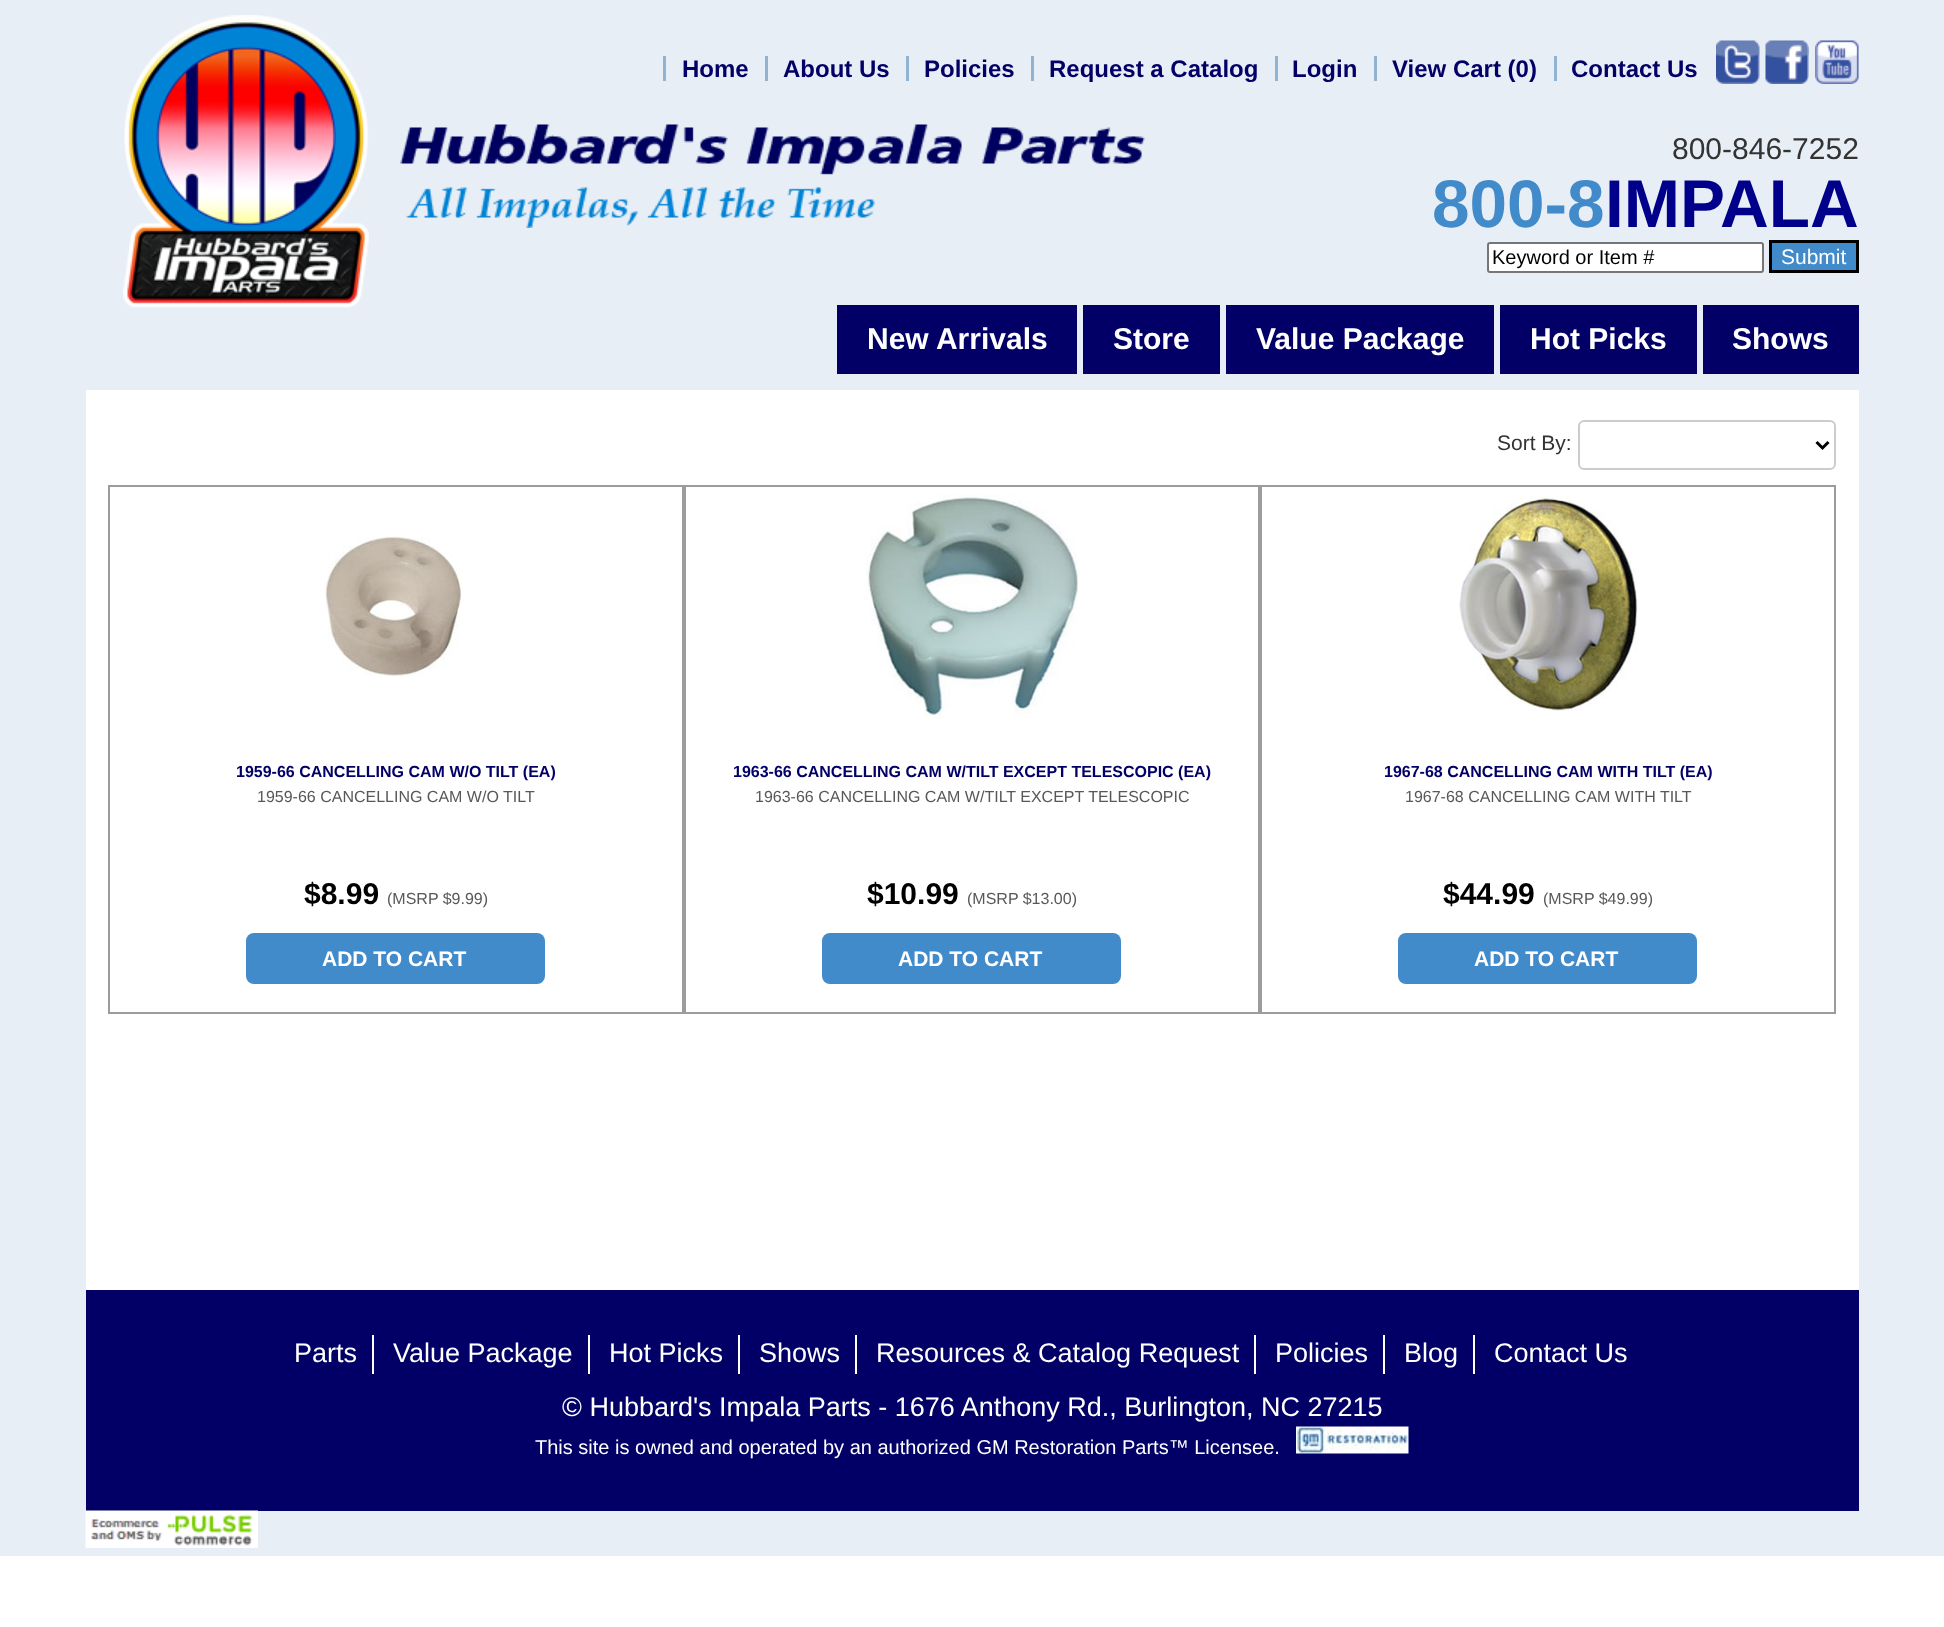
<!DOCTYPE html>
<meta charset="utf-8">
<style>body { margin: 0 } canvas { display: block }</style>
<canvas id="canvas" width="1944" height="1627"></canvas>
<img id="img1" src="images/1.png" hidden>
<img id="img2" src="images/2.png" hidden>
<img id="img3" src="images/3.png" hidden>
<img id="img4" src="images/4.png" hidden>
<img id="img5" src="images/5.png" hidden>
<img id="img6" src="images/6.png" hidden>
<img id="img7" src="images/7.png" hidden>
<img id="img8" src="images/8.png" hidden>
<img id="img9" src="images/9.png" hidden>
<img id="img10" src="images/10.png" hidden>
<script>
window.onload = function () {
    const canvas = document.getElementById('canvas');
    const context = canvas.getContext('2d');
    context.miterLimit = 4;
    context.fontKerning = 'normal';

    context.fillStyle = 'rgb(255, 255, 255)';
    context.fillRect(0, 0, 1944, 1627);
    context.fillStyle = 'rgb(231, 238, 246)';
    context.fillRect(0, 0, 1944, 1556);
    context.drawImage(document.getElementById('img1'), 123, 15, 246, 293);
    context.drawImage(document.getElementById('img2'), 400, 124, 745, 104);
    context.fillStyle = 'rgb(144, 179, 209)';
    context.fillRect(663, 56, 3, 25);
    context.fillRect(765, 56, 3, 25);
    context.fillRect(906, 56, 3, 25);
    context.fillRect(1031, 56, 3, 25);
    context.fillRect(1275, 56, 3, 25);
    context.fillRect(1374, 56, 3, 25);
    context.fillRect(1554, 56, 3, 25);
    context.drawImage(document.getElementById('img3'), 1716, 40, 44, 44);
    context.drawImage(document.getElementById('img4'), 1765, 40, 44, 44);
    context.drawImage(document.getElementById('img5'), 1815, 40, 44, 44);
    context.fillStyle = 'rgb(255, 255, 255)';
    context.beginPath();
    context.roundRect(1488, 243, 275, 29, 2);
    context.fill();
    context.strokeStyle = 'rgb(118, 118, 118)';
    context.lineWidth = 2;
    context.stroke();
    context.fillStyle = 'rgb(66, 139, 202)';
    context.beginPath();
    context.rect(1770.5, 241.5, 87, 30);
    context.fill();
    context.strokeStyle = 'rgb(0, 0, 0)';
    context.lineWidth = 3;
    context.stroke();
    context.fillStyle = 'rgb(2, 0, 102)';
    context.fillRect(837, 305, 240, 69);
    context.fillRect(1083, 305, 137, 69);
    context.fillRect(1226, 305, 268, 69);
    context.fillRect(1500, 305, 197, 69);
    context.fillRect(1703, 305, 156, 69);
    context.fillStyle = 'rgb(255, 255, 255)';
    context.fillRect(86, 390, 1773, 900);
    context.beginPath();
    context.roundRect(1579, 421, 256, 48, 5);
    context.strokeStyle = 'rgb(204, 204, 204)';
    context.lineWidth = 2;
    context.stroke();
    context.beginPath();
    context.moveTo(1816.5, 442);
    context.lineTo(1822.5, 448);
    context.lineTo(1828.5, 442);
    context.strokeStyle = 'rgb(0, 0, 0)';
    context.lineWidth = 3;
    context.stroke();
    context.strokeStyle = 'rgb(156, 156, 156)';
    context.lineWidth = 2;
    context.strokeRect(109, 486, 574, 527);
    context.drawImage(document.getElementById('img6'), 324, 536, 138, 141);
    context.fillStyle = 'rgb(66, 139, 202)';
    context.beginPath();
    context.roundRect(246, 933, 299, 51, 8);
    context.fill();
    context.strokeRect(685, 486, 574, 527);
    context.drawImage(document.getElementById('img7'), 866, 494, 212, 225);
    context.beginPath();
    context.roundRect(822, 933, 299, 51, 8);
    context.fill();
    context.strokeRect(1261, 486, 574, 527);
    context.drawImage(document.getElementById('img8'), 1459, 496, 179, 215);
    context.beginPath();
    context.roundRect(1398, 933, 299, 51, 8);
    context.fill();
    context.fillStyle = 'rgb(2, 0, 102)';
    context.fillRect(86, 1290, 1773, 221);
    context.fillStyle = 'rgb(255, 255, 255)';
    context.fillRect(372, 1335, 2, 39);
    context.fillRect(588, 1335, 2, 39);
    context.fillRect(738, 1335, 2, 39);
    context.fillRect(855, 1335, 2, 39);
    context.fillRect(1254, 1335, 2, 39);
    context.fillRect(1383, 1335, 2, 39);
    context.fillRect(1473, 1335, 2, 39);
    context.drawImage(document.getElementById('img9'), 1296, 1426, 113, 28);
    context.drawImage(document.getElementById('img10'), 85, 1510, 173, 38);
    context.font = 'bold 24px Liberation Sans';
    context.fillStyle = 'rgb(2, 0, 102)';
    context.fillText('Home', 682, 77);
    context.fillText('About Us', 783, 77);
    context.fillText('Policies', 924, 77);
    context.fillText('Request a Catalog', 1049, 77);
    context.fillText('Login', 1292, 77);
    context.fillText('View Cart (0)', 1392, 77);
    context.fillText('Contact Us', 1571, 77);
    context.font = '30px Liberation Sans';
    context.fillStyle = 'rgb(51, 51, 51)';
    context.fillText('800-846-7252', 1672, 159);
    context.font = 'bold 67.5px Liberation Sans';
    context.fillStyle = 'rgb(66, 139, 202)';
    context.fillText('800-8', 1432, 227);
    context.fillStyle = 'rgb(0, 0, 139)';
    context.fillText('IMPALA', 1605, 227);
    context.font = '20px Liberation Sans';
    context.fillStyle = 'rgb(0, 0, 0)';
    context.fillText('Keyword or Item #', 1492, 264);
    context.font = '21px Liberation Sans';
    context.fillStyle = 'rgb(255, 255, 255)';
    context.fillText('Submit', 1781, 264);
    context.font = 'bold 30px Liberation Sans';
    context.fillText('New Arrivals', 867, 349);
    context.fillText('Store', 1113, 349);
    context.fillText('Value Package', 1256, 349);
    context.fillText('Hot Picks', 1530, 349);
    context.fillText('Shows', 1732, 349);
    context.font = '21px Liberation Sans';
    context.fillStyle = 'rgb(51, 51, 51)';
    context.fillText('Sort By:', 1497, 450);
    context.font = 'bold 16px Liberation Sans';
    context.fillStyle = 'rgb(2, 0, 102)';
    context.fillText('1959-66 CANCELLING CAM W/O TILT (EA)', 236, 777);
    context.font = '16px Liberation Sans';
    context.fillStyle = 'rgb(88, 88, 88)';
    context.fillText('1959-66 CANCELLING CAM W/O TILT', 257, 802);
    context.font = 'bold 30px Liberation Sans';
    context.fillStyle = 'rgb(0, 0, 0)';
    context.fillText('$8.99', 304, 904);
    context.font = '16px Liberation Sans';
    context.fillStyle = 'rgb(88, 88, 88)';
    context.fillText('(MSRP $9.99)', 387, 904);
    context.font = 'bold 21px Liberation Sans';
    context.fillStyle = 'rgb(255, 255, 255)';
    context.fillText('ADD TO CART', 322, 966);
    context.font = 'bold 16px Liberation Sans';
    context.fillStyle = 'rgb(2, 0, 102)';
    context.fillText('1963-66 CANCELLING CAM W/TILT EXCEPT TELESCOPIC (EA)', 733, 777);
    context.font = '16px Liberation Sans';
    context.fillStyle = 'rgb(88, 88, 88)';
    context.fillText('1963-66 CANCELLING CAM W/TILT EXCEPT TELESCOPIC', 755, 802);
    context.font = 'bold 30px Liberation Sans';
    context.fillStyle = 'rgb(0, 0, 0)';
    context.fillText('$10.99', 867, 904);
    context.font = '16px Liberation Sans';
    context.fillStyle = 'rgb(88, 88, 88)';
    context.fillText('(MSRP $13.00)', 967, 904);
    context.font = 'bold 21px Liberation Sans';
    context.fillStyle = 'rgb(255, 255, 255)';
    context.fillText('ADD TO CART', 898, 966);
    context.font = 'bold 16px Liberation Sans';
    context.fillStyle = 'rgb(2, 0, 102)';
    context.fillText('1967-68 CANCELLING CAM WITH TILT (EA)', 1384, 777);
    context.font = '16px Liberation Sans';
    context.fillStyle = 'rgb(88, 88, 88)';
    context.fillText('1967-68 CANCELLING CAM WITH TILT', 1405, 802);
    context.font = 'bold 30px Liberation Sans';
    context.fillStyle = 'rgb(0, 0, 0)';
    context.fillText('$44.99', 1443, 904);
    context.font = '16px Liberation Sans';
    context.fillStyle = 'rgb(88, 88, 88)';
    context.fillText('(MSRP $49.99)', 1543, 904);
    context.font = 'bold 21px Liberation Sans';
    context.fillStyle = 'rgb(255, 255, 255)';
    context.fillText('ADD TO CART', 1474, 966);
    context.font = '27px Liberation Sans';
    context.fillText('Parts', 294, 1362);
    context.fillText('Value Package', 393, 1362);
    context.fillText('Hot Picks', 609, 1362);
    context.fillText('Shows', 759, 1362);
    context.fillText('Resources & Catalog Request', 876, 1362);
    context.fillText('Policies', 1275, 1362);
    context.fillText('Blog', 1404, 1362);
    context.fillText('Contact Us', 1494, 1362);
    context.fillText('© Hubbard\'s Impala Parts - 1676 Anthony Rd., Burlington, NC 27215', 562, 1416);
    context.font = '20px Liberation Sans';
    context.fillText('This site is owned and operated by an authorized GM Restoration Parts™ Licensee.', 535, 1454);
};
</script>
